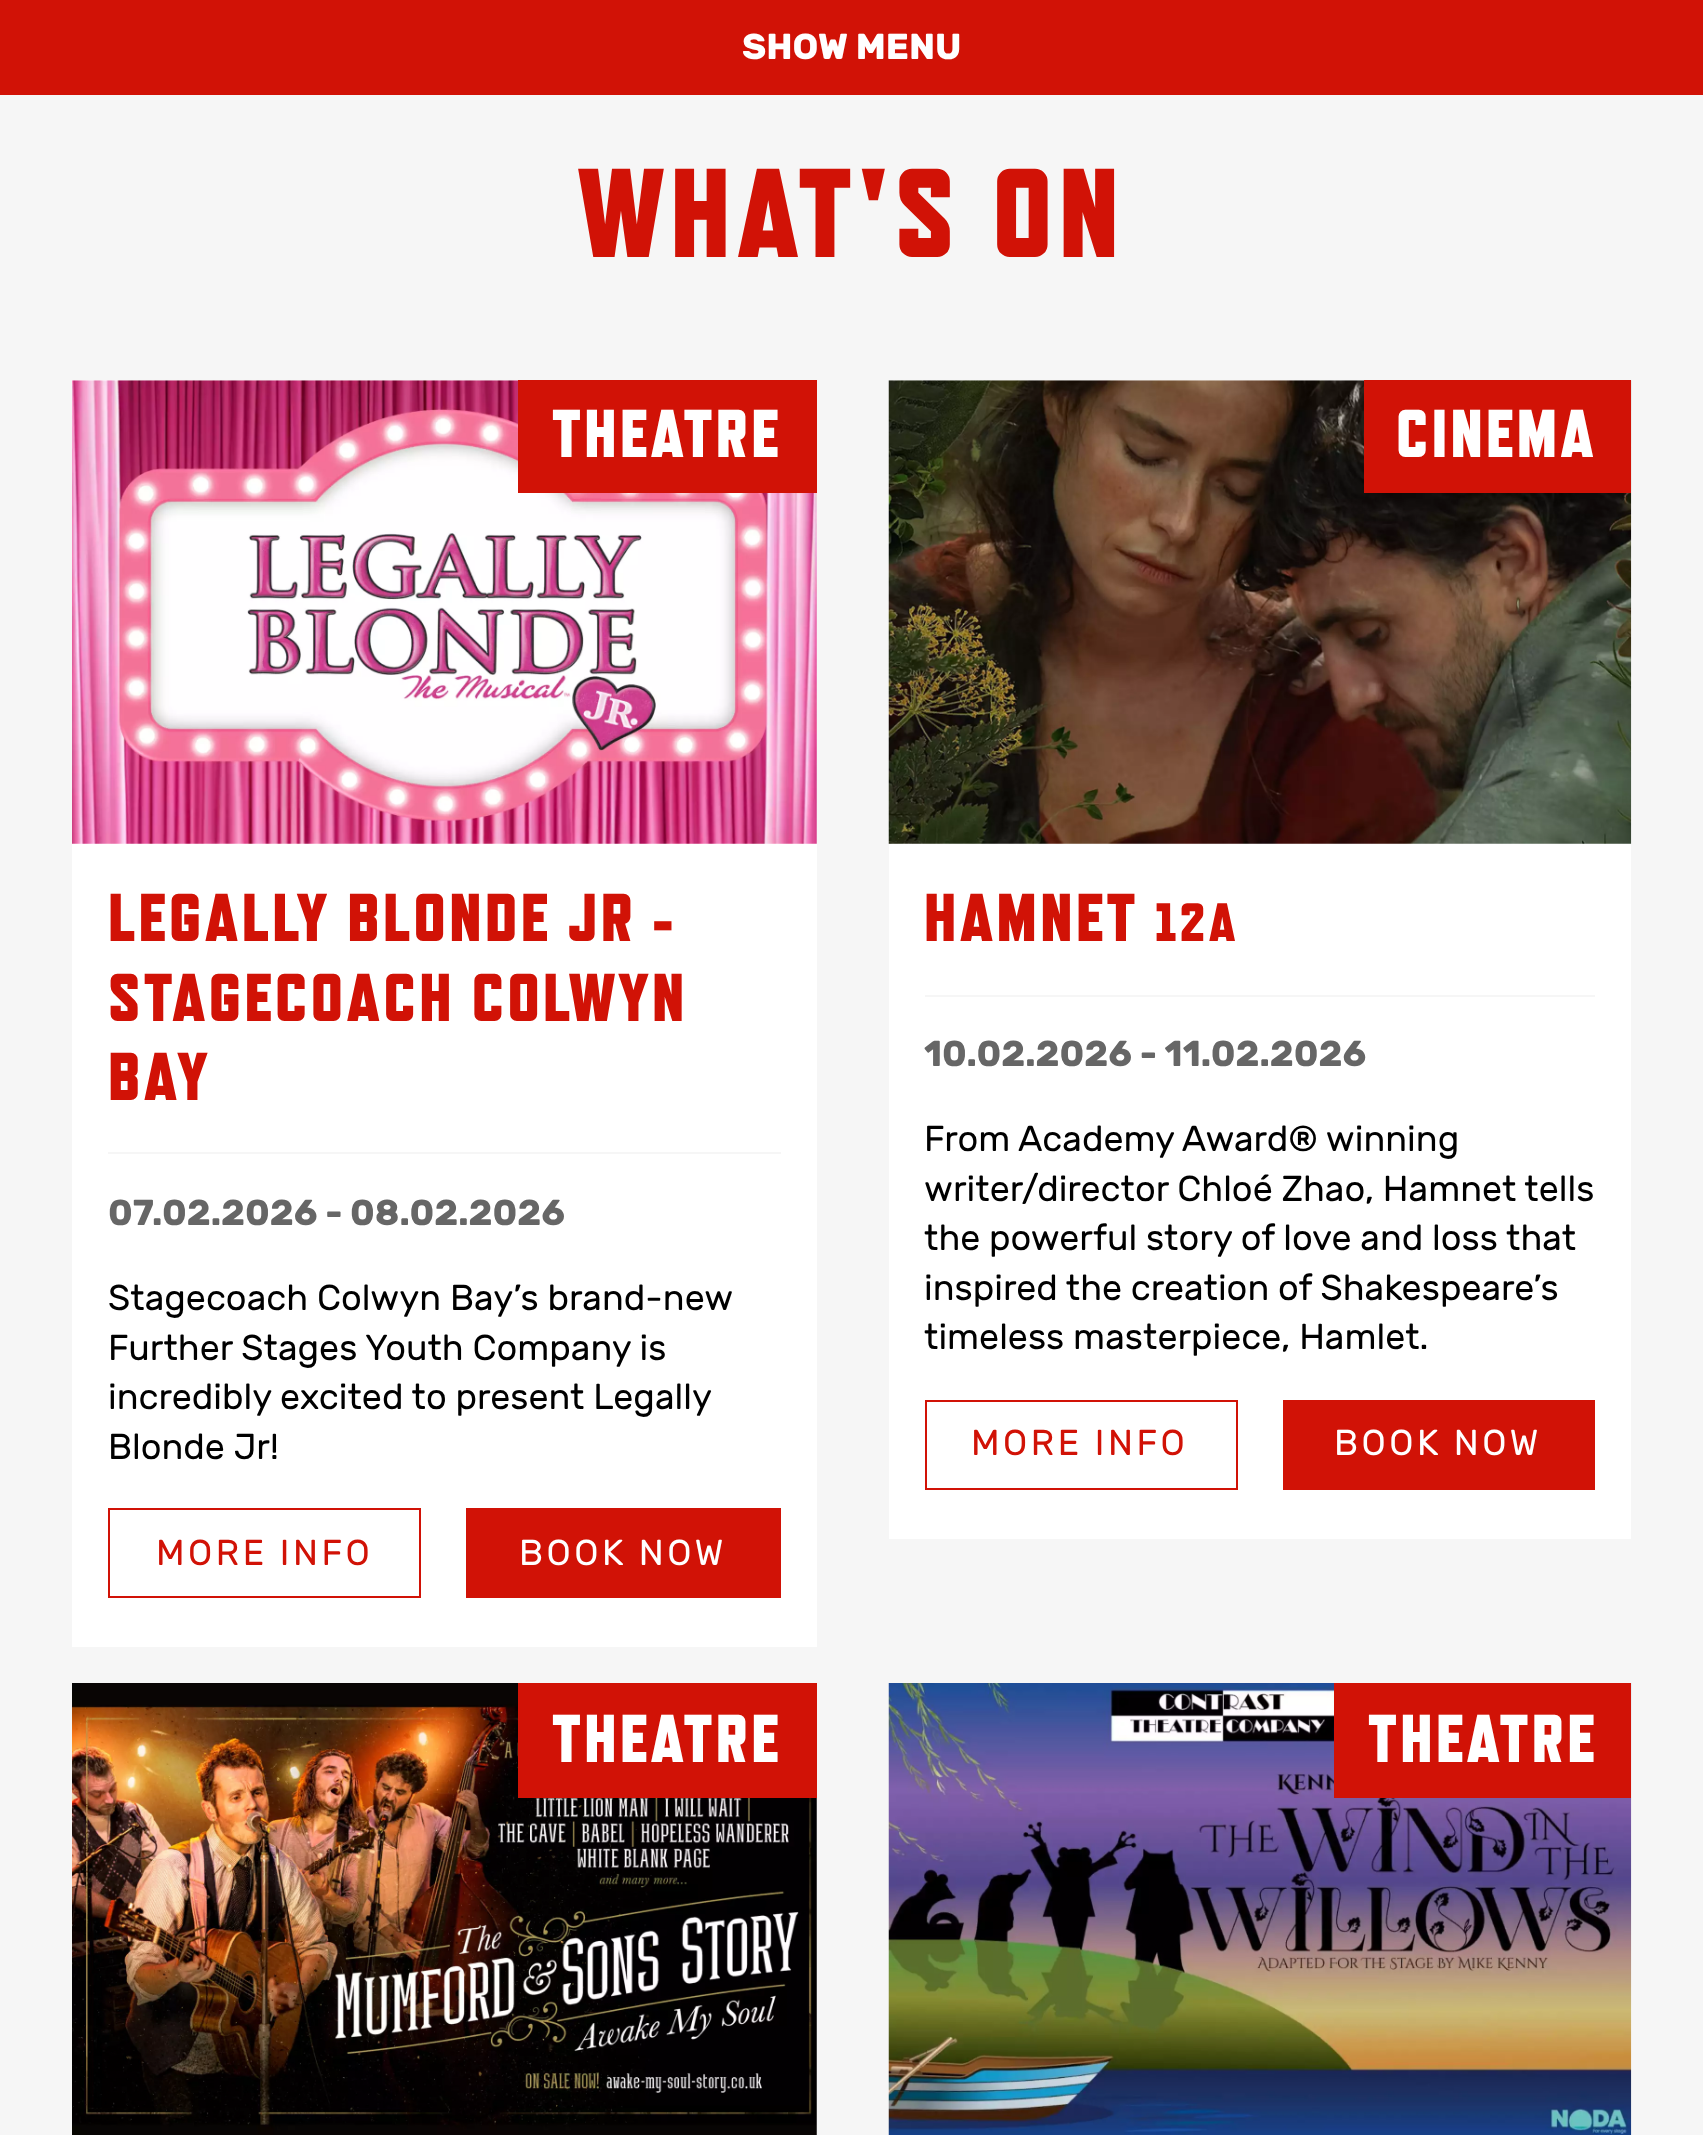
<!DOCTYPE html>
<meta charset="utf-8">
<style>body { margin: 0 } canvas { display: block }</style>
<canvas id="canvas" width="1703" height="2135"></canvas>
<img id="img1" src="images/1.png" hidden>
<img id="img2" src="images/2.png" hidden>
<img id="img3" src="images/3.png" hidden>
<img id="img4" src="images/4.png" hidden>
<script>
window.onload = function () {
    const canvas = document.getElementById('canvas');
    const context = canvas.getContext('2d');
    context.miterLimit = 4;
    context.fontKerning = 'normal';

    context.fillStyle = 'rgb(209, 18, 6)';
    context.fillRect(0, 0, 1703, 2135);
    context.fillStyle = 'rgb(246, 246, 246)';
    context.fillRect(0, 95, 1703, 2040);
    context.fillStyle = 'rgb(255, 255, 255)';
    context.fillRect(72, 380, 745, 1267);
    context.drawImage(document.getElementById('img1'), 72, 380, 745, 464);
    context.fillStyle = 'rgb(209, 18, 6)';
    context.fillRect(518, 380, 299, 113);
    context.fillStyle = 'rgb(246, 246, 246)';
    context.fillRect(108, 1152, 673, 2);
    context.strokeStyle = 'rgb(209, 18, 6)';
    context.lineWidth = 2;
    context.strokeRect(109, 1509, 311, 88);
    context.fillStyle = 'rgb(209, 18, 6)';
    context.fillRect(466, 1508, 315, 90);
    context.fillStyle = 'rgb(255, 255, 255)';
    context.fillRect(889, 380, 742, 1159);
    context.drawImage(document.getElementById('img2'), 888, 380, 744, 464);
    context.fillStyle = 'rgb(209, 18, 6)';
    context.fillRect(1364, 380, 267, 113);
    context.fillStyle = 'rgb(246, 246, 246)';
    context.fillRect(925, 995, 670, 2);
    context.strokeRect(926, 1401, 311, 88);
    context.fillStyle = 'rgb(209, 18, 6)';
    context.fillRect(1283, 1400, 312, 90);
    context.drawImage(document.getElementById('img3'), 72, 1683, 745, 452);
    context.fillRect(518, 1683, 299, 115);
    context.drawImage(document.getElementById('img4'), 888, 1683, 744, 452);
    context.fillRect(1334, 1683, 297, 115);
    context.font = 'bold 36px Rubik';
    context.fillStyle = 'rgb(255, 255, 255)';
    context.fillText('SHOW MENU', 742, 59);
    context.letterSpacing = '6.25px';
    context.font = '900 126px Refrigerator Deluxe';
    context.fillStyle = 'rgb(209, 18, 6)';
    context.fillText('WHAT\'S ON', 578, 257);
    context.letterSpacing = '3.4px';
    context.font = '900 67.5px Refrigerator Deluxe';
    context.fillStyle = 'rgb(255, 255, 255)';
    context.fillText('THEATRE', 552, 457);
    context.fillStyle = 'rgb(209, 18, 6)';
    context.fillText('LEGALLY BLONDE JR -', 108, 941);
    context.fillText('STAGECOACH COLWYN', 108, 1021);
    context.fillText('BAY', 108, 1100);
    context.letterSpacing = '0px';
    context.font = 'bold 36px Rubik';
    context.fillStyle = 'rgb(102, 102, 102)';
    context.fillText('07.02.2026 - 08.02.2026', 108, 1225);
    context.font = '36px Rubik';
    context.fillStyle = 'rgb(0, 0, 0)';
    context.fillText('Stagecoach Colwyn Bay’s brand-new', 108, 1310);
    context.fillText('Further Stages Youth Company is', 108, 1360);
    context.fillText('incredibly excited to present Legally', 108, 1409);
    context.fillText('Blonde Jr!', 108, 1459);
    context.letterSpacing = '3.5px';
    context.fillStyle = 'rgb(209, 18, 6)';
    context.fillText('MORE INFO', 156, 1565);
    context.fillStyle = 'rgb(255, 255, 255)';
    context.fillText('BOOK NOW', 519, 1565);
    context.letterSpacing = '3.4px';
    context.font = '900 67.5px Refrigerator Deluxe';
    context.fillText('CINEMA', 1396, 457);
    context.fillStyle = 'rgb(209, 18, 6)';
    context.fillText('HAMNET', 924, 941);
    context.font = '900 54px Refrigerator Deluxe';
    context.fillText('12A', 1155, 941);
    context.letterSpacing = '0px';
    context.font = 'bold 36px Rubik';
    context.fillStyle = 'rgb(102, 102, 102)';
    context.fillText('10.02.2026 - 11.02.2026', 924, 1066);
    context.font = '36px Rubik';
    context.fillStyle = 'rgb(0, 0, 0)';
    context.fillText('From Academy Award® winning', 924, 1151);
    context.fillText('writer/director Chloé Zhao, Hamnet tells', 924, 1201);
    context.fillText('the powerful story of love and loss that', 924, 1250);
    context.fillText('inspired the creation of Shakespeare’s', 924, 1300);
    context.fillText('timeless masterpiece, Hamlet.', 924, 1349);
    context.letterSpacing = '3.5px';
    context.fillStyle = 'rgb(209, 18, 6)';
    context.fillText('MORE INFO', 971, 1455);
    context.fillStyle = 'rgb(255, 255, 255)';
    context.fillText('BOOK NOW', 1334, 1455);
    context.letterSpacing = '3.4px';
    context.font = '900 67.5px Refrigerator Deluxe';
    context.fillText('THEATRE', 552, 1762);
    context.fillText('THEATRE', 1368, 1762);
};
</script>
